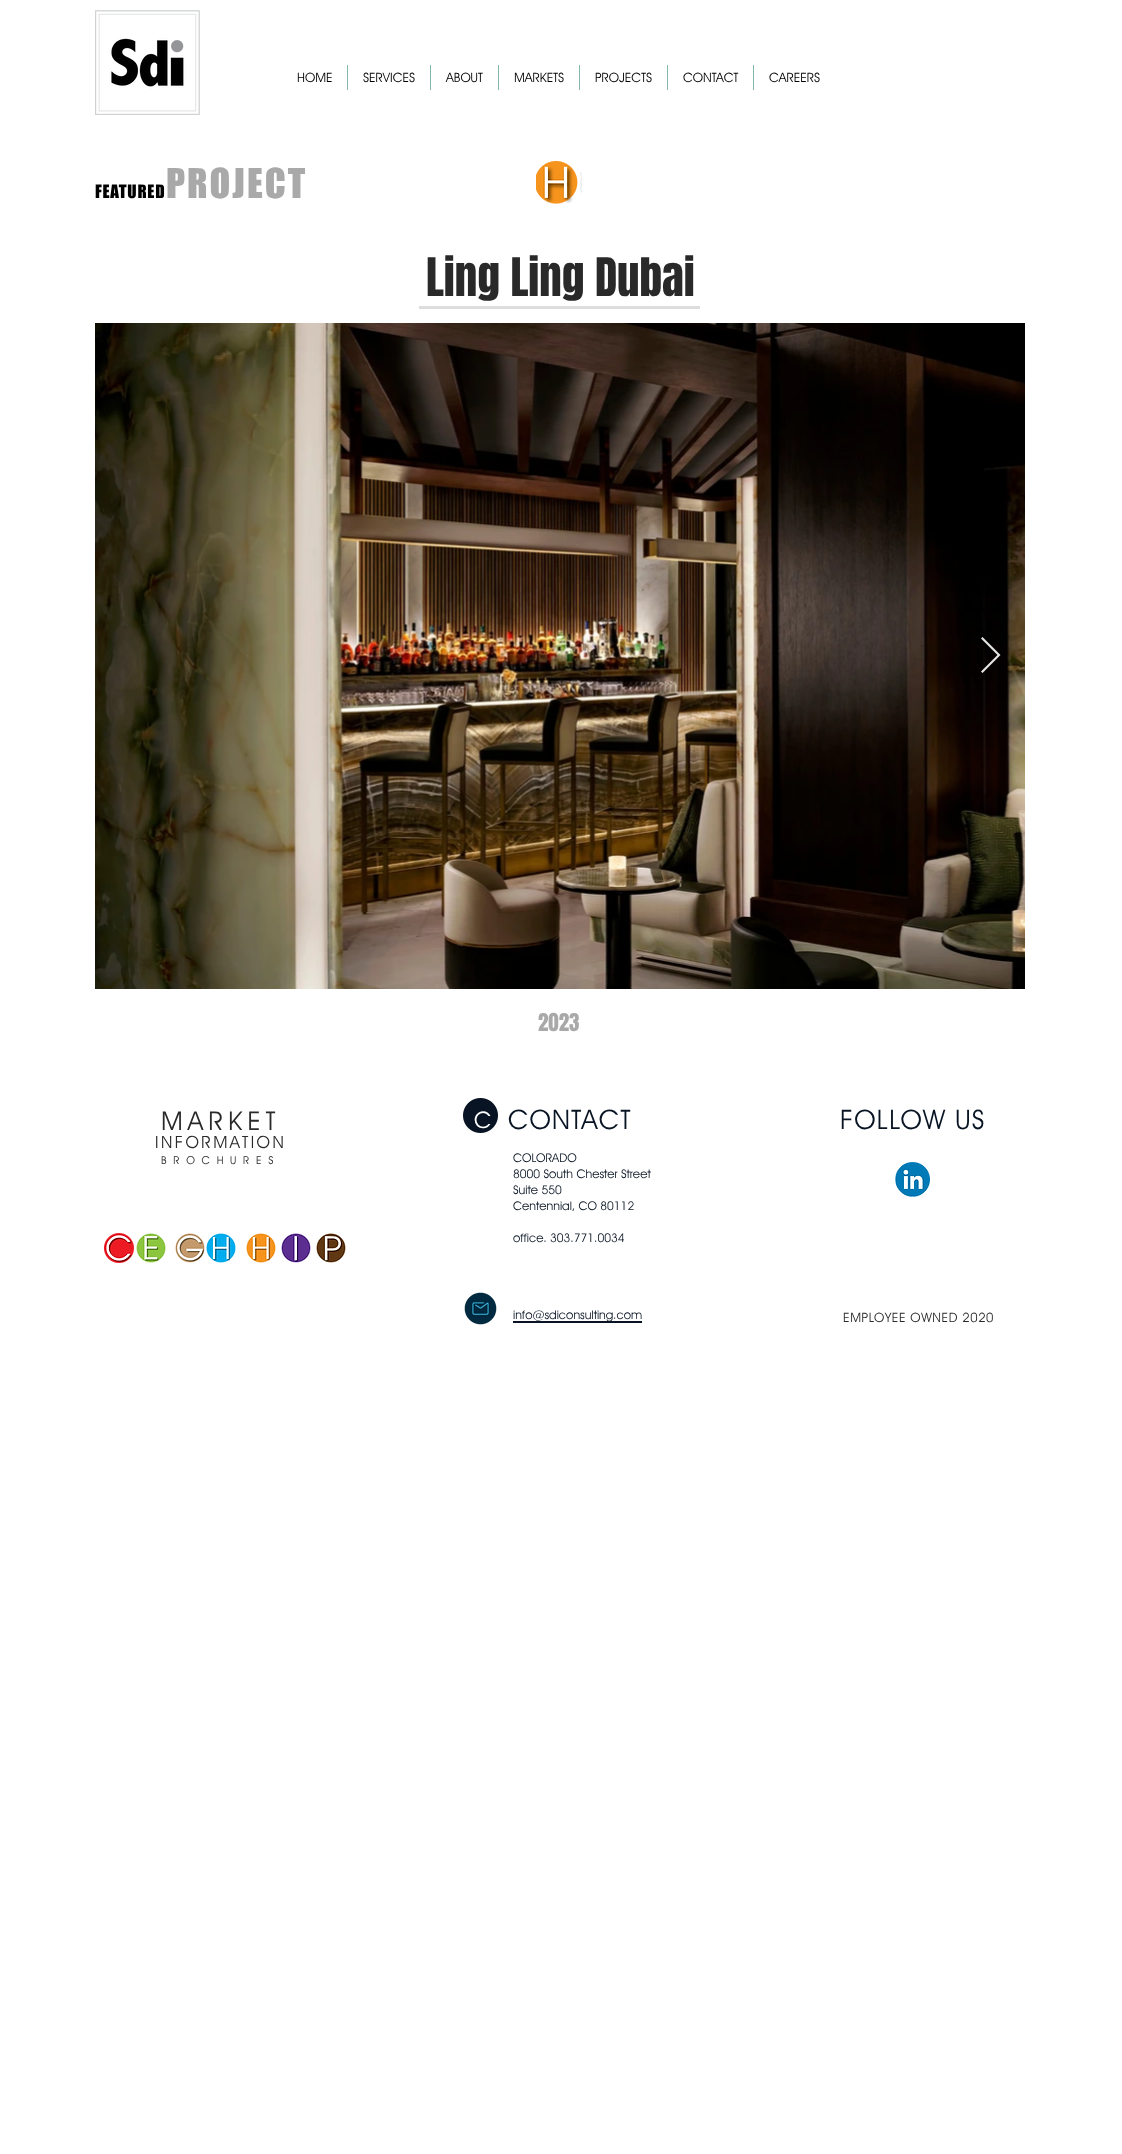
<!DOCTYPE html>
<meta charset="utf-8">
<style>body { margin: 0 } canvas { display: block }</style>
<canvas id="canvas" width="1122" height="2154"></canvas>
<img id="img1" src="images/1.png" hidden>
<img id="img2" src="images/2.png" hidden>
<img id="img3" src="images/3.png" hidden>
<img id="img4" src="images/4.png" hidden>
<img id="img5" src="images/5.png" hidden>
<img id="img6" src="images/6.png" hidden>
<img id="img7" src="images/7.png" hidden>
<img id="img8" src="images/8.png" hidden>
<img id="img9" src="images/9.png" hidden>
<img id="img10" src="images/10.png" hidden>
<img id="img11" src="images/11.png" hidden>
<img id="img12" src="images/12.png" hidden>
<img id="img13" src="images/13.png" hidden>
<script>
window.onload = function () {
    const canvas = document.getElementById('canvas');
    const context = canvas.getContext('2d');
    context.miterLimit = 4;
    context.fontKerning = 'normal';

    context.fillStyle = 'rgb(255, 255, 255)';
    context.fillRect(0, 0, 1122, 2154);
    context.drawImage(document.getElementById('img1'), 95, 10, 105, 105);
    context.fillStyle = 'rgb(130, 184, 172)';
    context.fillRect(347, 65, 1, 25);
    context.fillRect(430, 65, 1, 25);
    context.fillRect(498, 65, 1, 25);
    context.fillRect(579, 65, 1, 25);
    context.fillRect(667, 65, 1, 25);
    context.fillRect(753, 65, 1, 25);
    context.drawImage(document.getElementById('img2'), 536, 161, 46, 43);
    context.fillStyle = 'rgb(221, 221, 221)';
    context.fillRect(419, 306, 281, 3);
    context.drawImage(document.getElementById('img3'), 95, 323, 930, 666);
    context.fillStyle = 'rgba(255, 255, 255, 0.9)';
    context.beginPath();
    context.moveTo(981, 638.5);
    context.lineTo(982.5, 637);
    context.lineTo(1000.5, 655);
    context.lineTo(982.5, 673);
    context.lineTo(981, 671.5);
    context.lineTo(997.5, 655);
    context.closePath();
    context.fill();
    context.drawImage(document.getElementById('img4'), 463, 1098, 35, 35);
    context.drawImage(document.getElementById('img5'), 895, 1162, 35, 35);
    context.drawImage(document.getElementById('img6'), 104, 1233, 30, 30);
    context.drawImage(document.getElementById('img7'), 136, 1233, 30, 30);
    context.drawImage(document.getElementById('img8'), 175, 1233, 30, 30);
    context.drawImage(document.getElementById('img9'), 206, 1233, 30, 30);
    context.drawImage(document.getElementById('img10'), 246, 1233, 30, 30);
    context.drawImage(document.getElementById('img11'), 281, 1233, 30, 30);
    context.drawImage(document.getElementById('img12'), 316, 1233, 30, 30);
    context.drawImage(document.getElementById('img13'), 464, 1292, 33, 33);
    context.fillStyle = 'rgb(8, 20, 35)';
    context.fillRect(513, 1321, 129, 2);
    context.font = '13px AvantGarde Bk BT';
    context.fillStyle = 'rgb(0, 0, 0)';
    context.fillText('HOME', 297, 82);
    context.fillText('SERVICES', 363, 82);
    context.fillText('ABOUT', 446, 82);
    context.fillText('MARKETS', 514, 82);
    context.fillText('PROJECTS', 595, 82);
    context.fillText('CONTACT', 683, 82);
    context.fillText('CAREERS', 769, 82);
    context.letterSpacing = '0.75px';
    context.font = '17px "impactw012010"';
    context.fillText('FEATURED', 95, 198);
    context.letterSpacing = '2px';
    context.font = '38px "impactw012010"';
    context.fillStyle = 'rgb(169, 169, 169)';
    context.fillText('PROJECT', 166, 198);
    context.letterSpacing = '0px';
    context.font = '45px Anton';
    context.fillStyle = 'rgb(41, 41, 41)';
    context.fillText('Ling Ling Dubai', 426, 296);
    context.font = '21px Anton';
    context.fillStyle = 'rgb(169, 169, 169)';
    context.fillText('2023', 538, 1031);
    context.letterSpacing = '5.25px';
    context.font = '26px AvantGarde Bk BT';
    context.fillStyle = 'rgb(41, 41, 41)';
    context.fillText('MARKET', 161, 1130);
    context.letterSpacing = '2.5px';
    context.font = '17px AvantGarde Bk BT';
    context.fillText('INFORMATION', 155, 1148);
    context.letterSpacing = '6.75px';
    context.font = '11px AvantGarde Bk BT';
    context.fillText('BROCHURES', 161, 1164);
    context.letterSpacing = '1.25px';
    context.font = '27px AvantGarde Bk BT';
    context.fillStyle = 'rgb(8, 20, 35)';
    context.fillText('CONTACT', 508, 1129);
    context.fillText('FOLLOW US', 840, 1129);
    context.letterSpacing = '0px';
    context.font = '23px AvantGarde Bk BT';
    context.fillStyle = 'rgb(255, 255, 255)';
    context.fillText('C', 474, 1128);
    context.font = '12px AvantGarde Bk BT';
    context.fillStyle = 'rgb(8, 20, 35)';
    context.fillText('COLORADO', 513, 1162);
    context.fillText('8000 South Chester Street', 513, 1178);
    context.fillText('Suite 550', 513, 1194);
    context.fillText('Centennial, CO 80112', 513, 1210);
    context.fillText('office. 303.771.0034', 513, 1242);
    context.fillText('info@sdiconsulting.com', 513, 1319);
    context.letterSpacing = '0.6px';
    context.font = '13px AvantGarde Bk BT';
    context.fillStyle = 'rgb(41, 41, 41)';
    context.fillText('EMPLOYEE OWNED 2020', 843, 1322);
};
</script>
